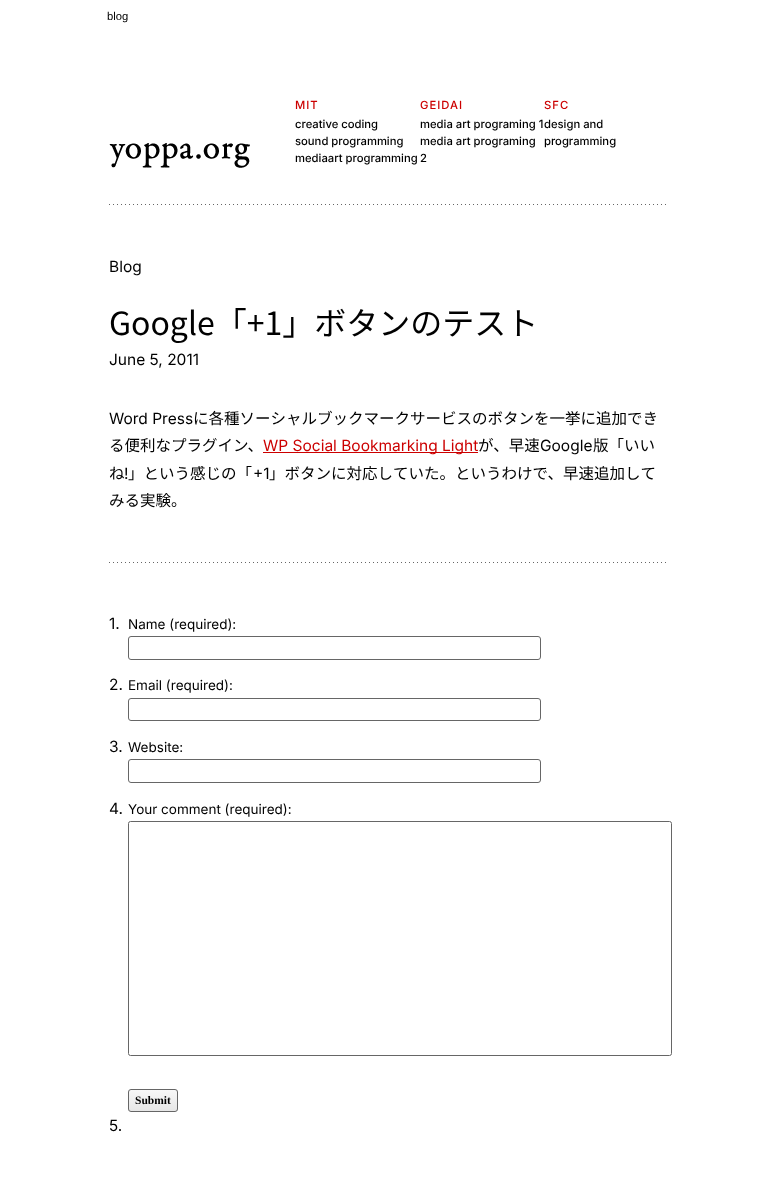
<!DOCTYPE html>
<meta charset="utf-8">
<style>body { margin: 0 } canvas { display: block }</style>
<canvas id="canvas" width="777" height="1181"></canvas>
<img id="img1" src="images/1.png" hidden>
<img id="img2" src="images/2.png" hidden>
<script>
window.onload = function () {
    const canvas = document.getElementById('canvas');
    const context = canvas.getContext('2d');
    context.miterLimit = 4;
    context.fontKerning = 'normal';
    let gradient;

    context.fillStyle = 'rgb(255, 255, 255)';
    context.fillRect(0, 0, 777, 1181);
    context.drawImage(document.getElementById('img1'), 109, 204, 557, 1);
    context.drawImage(document.getElementById('img2'), 109, 143, 141, 25);
    context.fillStyle = 'rgb(204, 0, 0)';
    context.fillRect(263, 452, 215, 1);
    context.drawImage(document.getElementById('img1'), 109, 562, 557, 1);
    context.beginPath();
    context.roundRect(128.5, 636.5, 412, 23, 2.5);
    context.strokeStyle = 'rgb(102, 102, 102)';
    context.stroke();
    context.beginPath();
    context.roundRect(128.5, 698.5, 412, 22, 2.5);
    context.stroke();
    context.beginPath();
    context.roundRect(128.5, 759.5, 412, 23, 2.5);
    context.stroke();
    context.beginPath();
    context.roundRect(128.5, 821.5, 543, 234, 2);
    context.stroke();
    context.save();
    context.beginPath();
    context.roundRect(128, 1089, 50, 23, 3);
    context.clip();
    gradient = context.createLinearGradient(129, 1090, 129, 1111);
    gradient.addColorStop(0, 'rgb(247, 247, 247)');
    gradient.addColorStop(1, 'rgb(230, 230, 230)');
    context.fillStyle = gradient;
    context.fillRect(128, 1090, 50, 21);
    context.restore();
    context.beginPath();
    context.roundRect(128.5, 1089.5, 49, 22, 2.5);
    context.stroke();
    context.font = '11.25px Liberation Sans';
    context.fillStyle = 'rgb(0, 0, 0)';
    context.fillText('blog', 107, 20);
    context.letterSpacing = '1px';
    context.font = '500 11.25px Inter';
    context.fillStyle = 'rgb(204, 0, 0)';
    context.fillText('MIT', 295, 109);
    context.letterSpacing = '0px';
    context.fillStyle = 'rgb(0, 0, 0)';
    context.fillText('creative coding', 295, 128);
    context.fillText('sound programming', 295, 145);
    context.fillText('mediaart programming', 295, 162);
    context.letterSpacing = '1px';
    context.fillStyle = 'rgb(204, 0, 0)';
    context.fillText('GEIDAI', 420, 109);
    context.letterSpacing = '0px';
    context.fillStyle = 'rgb(0, 0, 0)';
    context.fillText('media art programing 1', 420, 128);
    context.fillText('media art programing', 420, 145);
    context.fillText('2', 420, 162);
    context.letterSpacing = '1px';
    context.fillStyle = 'rgb(204, 0, 0)';
    context.fillText('SFC', 544, 109);
    context.letterSpacing = '0px';
    context.fillStyle = 'rgb(0, 0, 0)';
    context.fillText('design and', 544, 128);
    context.fillText('programming', 544, 145);
    context.font = '15.5px Inter';
    context.fillText('Blog', 109, 272);
    context.font = '32px Noto Sans JP';
    context.fillText('Google「+1」ボタンのテスト', 109, 335);
    context.font = '15.5px Inter';
    context.fillText('June 5, 2011', 109, 365);
    context.fillText('Word Press', 109, 424);
    context.font = '15.5px Noto Sans JP';
    context.fillText('に各種ソーシャルブックマークサービスのボタンを一挙に追加でき', 193, 424);
    context.fillText('る便利なプラグイン、', 109, 451);
    context.font = '15.5px Inter';
    context.fillStyle = 'rgb(204, 0, 0)';
    context.fillText('WP Social Bookmarking Light', 263, 451);
    context.font = '15.5px Noto Sans JP';
    context.fillStyle = 'rgb(0, 0, 0)';
    context.fillText('が、早速', 478, 451);
    context.font = '15.5px Inter';
    context.fillText('Google', 540, 451);
    context.font = '15.5px Noto Sans JP';
    context.fillText('版「いい', 593, 451);
    context.fillText('ね', 109, 479);
    context.font = '15.5px Inter';
    context.fillText('!', 124, 479);
    context.font = '15.5px Noto Sans JP';
    context.fillText('」という感じの「', 128, 479);
    context.font = '15.5px Inter';
    context.fillText('+1', 253, 479);
    context.font = '15.5px Noto Sans JP';
    context.fillText('」ボタンに対応していた。というわけで、早速追加して', 269, 479);
    context.fillText('みる実験。', 109, 506);
    context.font = '15.5px Inter';
    context.fillText('1.', 109, 629);
    context.font = '13.5px Inter';
    context.fillText('Name (required):', 128, 629);
    context.font = '15.5px Inter';
    context.fillText('2.', 109, 690);
    context.font = '13.5px Inter';
    context.fillText('Email (required):', 128, 690);
    context.font = '15.5px Inter';
    context.fillText('3.', 109, 752);
    context.font = '13.5px Inter';
    context.fillText('Website:', 128, 752);
    context.font = '15.5px Inter';
    context.fillText('4.', 109, 814);
    context.font = '13.5px Inter';
    context.fillText('Your comment (required):', 128, 814);
    context.font = 'bold 11.5px Liberation Serif';
    context.fillText('Submit', 135, 1104);
    context.font = '15.5px Inter';
    context.fillText('5.', 109, 1131);
};
</script>
